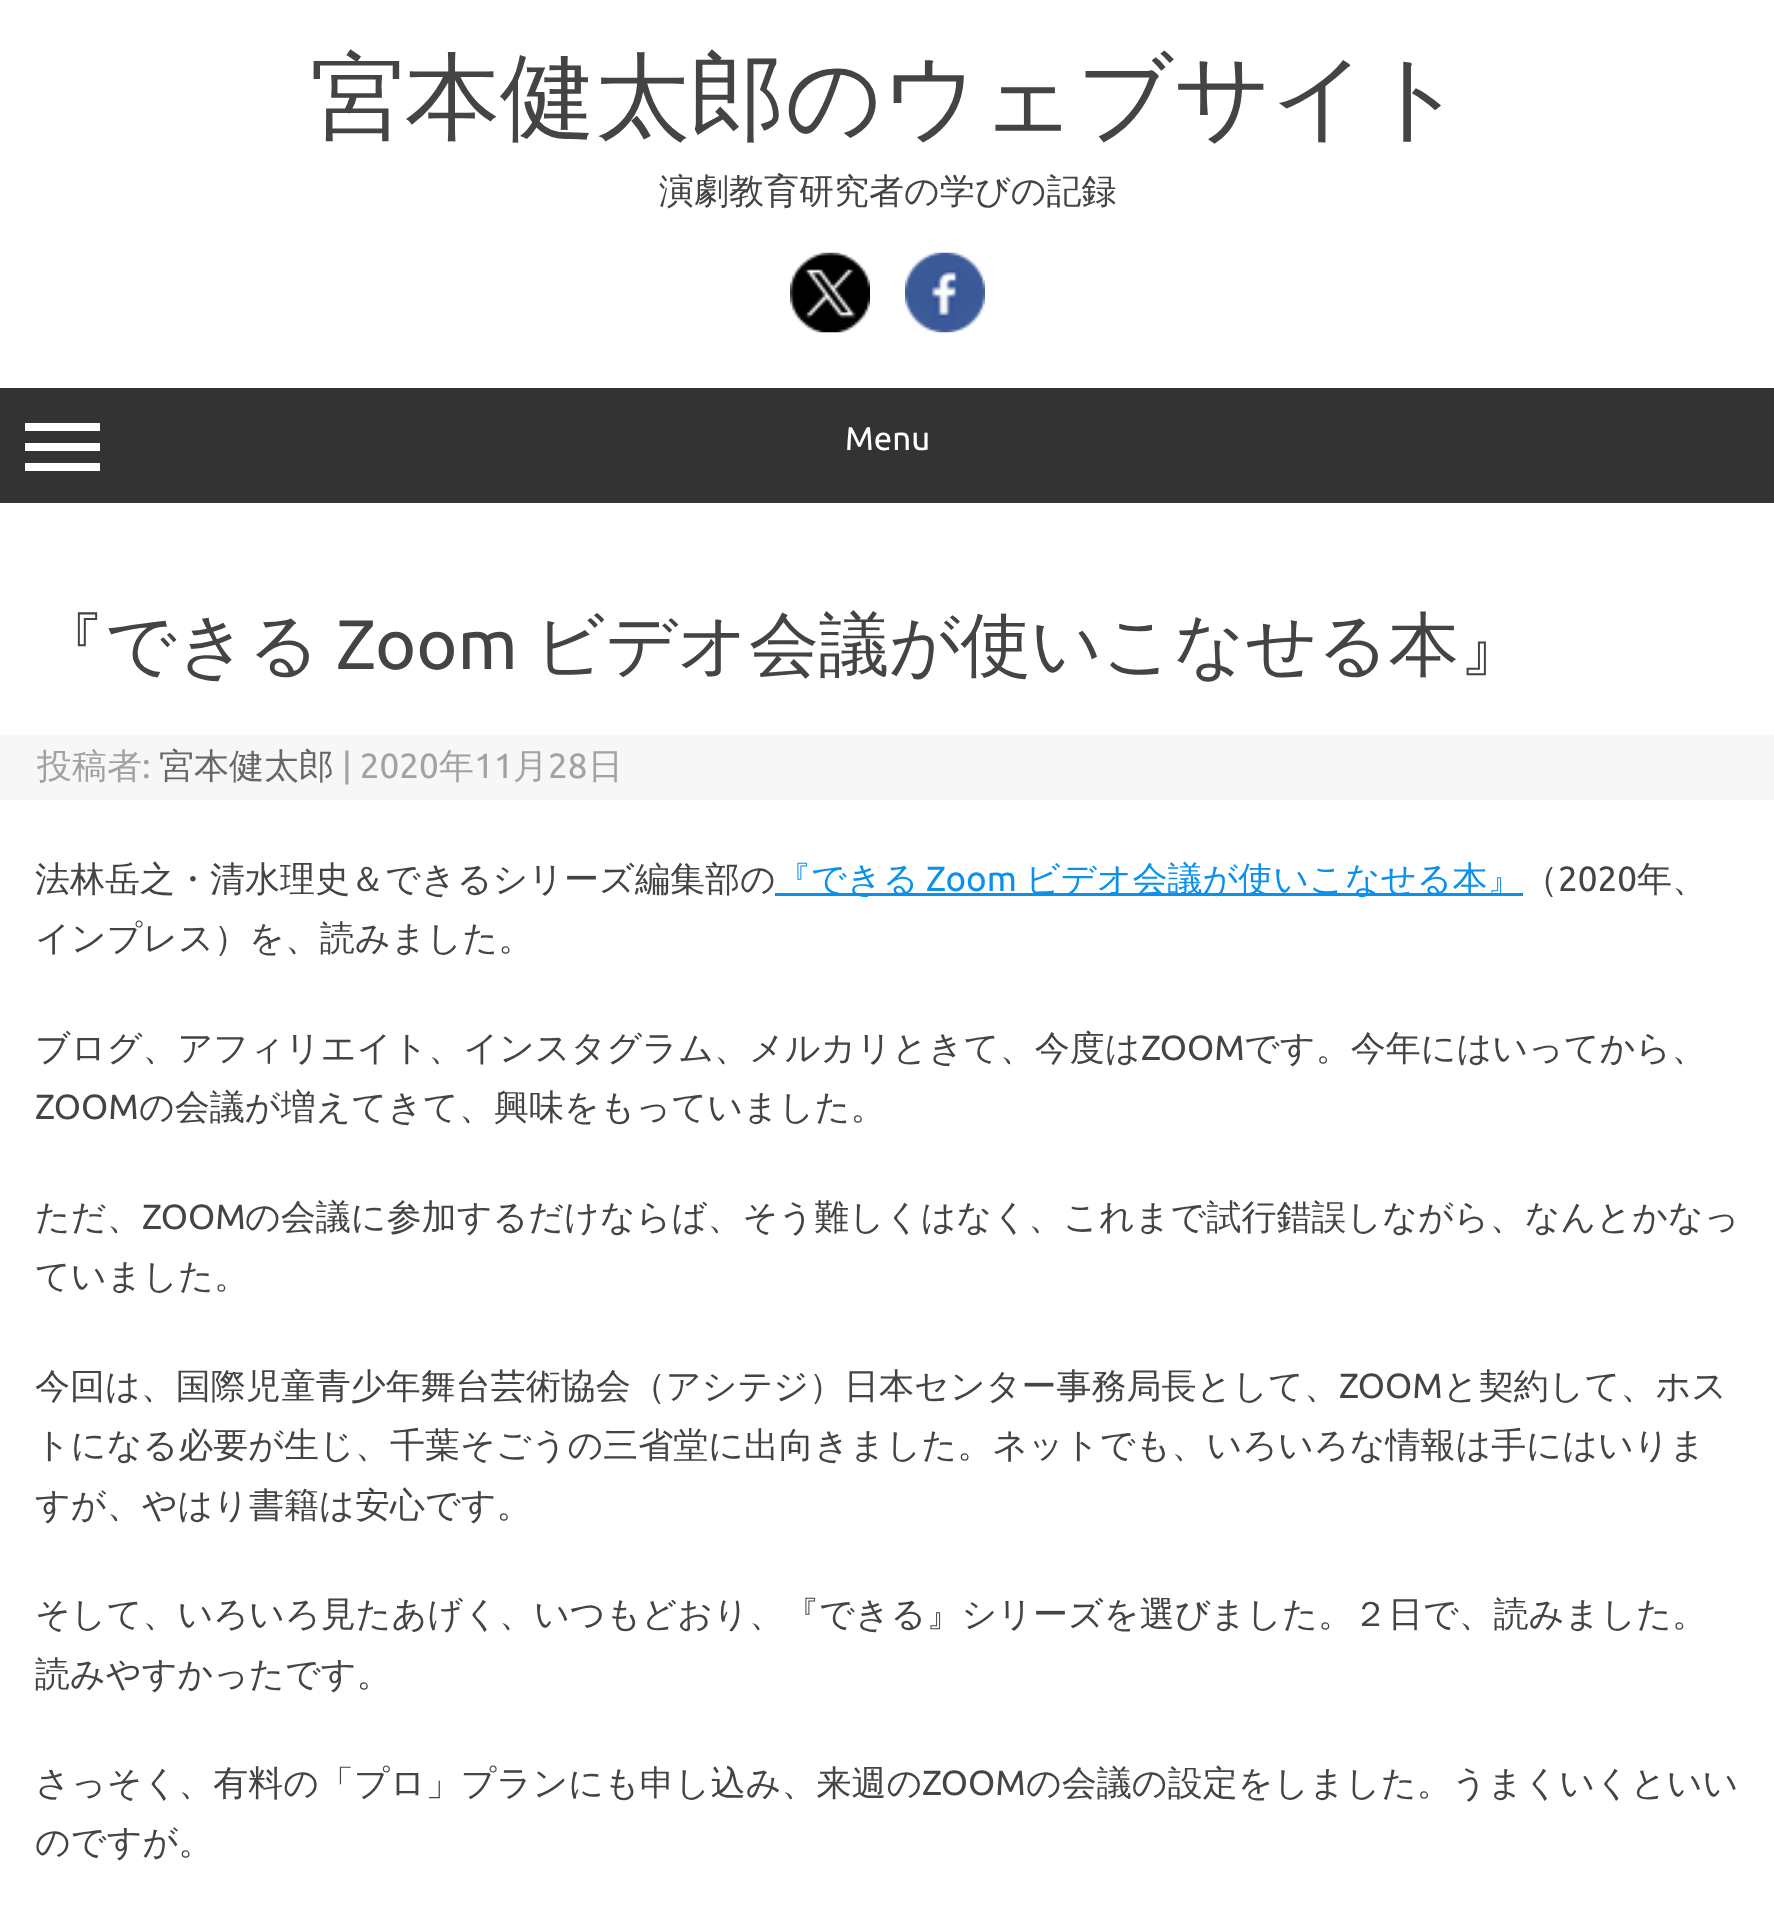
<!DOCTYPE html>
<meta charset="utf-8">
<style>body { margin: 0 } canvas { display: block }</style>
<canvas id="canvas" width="1774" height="1927"></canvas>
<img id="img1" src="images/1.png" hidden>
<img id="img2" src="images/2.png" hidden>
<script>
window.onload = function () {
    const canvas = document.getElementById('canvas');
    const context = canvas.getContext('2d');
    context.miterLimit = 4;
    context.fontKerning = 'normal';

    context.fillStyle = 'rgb(255, 255, 255)';
    context.fillRect(0, 0, 1774, 1927);
    context.drawImage(document.getElementById('img1'), 790, 252, 80, 81);
    context.drawImage(document.getElementById('img2'), 905, 252, 80, 81);
    context.fillStyle = 'rgb(51, 51, 51)';
    context.fillRect(0, 388, 1774, 115);
    context.fillStyle = 'rgb(255, 255, 255)';
    context.fillRect(25, 423, 75, 8);
    context.fillRect(25, 443, 75, 8);
    context.fillRect(25, 463, 75, 8);
    context.fillStyle = 'rgb(247, 247, 247)';
    context.fillRect(0, 735, 1774, 65);
    context.fillStyle = 'rgb(11, 145, 234)';
    context.fillRect(775, 893, 748, 3);
    context.font = '500 95px WenQuanYi Zen Hei';
    context.fillStyle = 'rgb(68, 68, 68)';
    context.fillText('宮本健太郎のウェブサイト', 310, 130);
    context.font = '500 35px WenQuanYi Zen Hei';
    context.fillText('演劇教育研究者の学びの記録', 659, 203);
    context.font = '33px Ubuntu';
    context.fillStyle = 'rgb(255, 255, 255)';
    context.fillText('Menu', 845, 450);
    context.font = '500 70px WenQuanYi Zen Hei';
    context.fillStyle = 'rgb(68, 68, 68)';
    context.fillText('『できる', 35, 669);
    context.font = '70px Ubuntu';
    context.fillText('Zoom', 336, 669);
    context.font = '500 70px WenQuanYi Zen Hei';
    context.fillText('ビデオ会議が使いこなせる本』', 534, 669);
    context.font = '500 35px WenQuanYi Zen Hei';
    context.fillStyle = 'rgb(162, 162, 162)';
    context.fillText('投稿者', 37, 778);
    context.font = '35px Ubuntu';
    context.fillText(':', 142, 778);
    context.font = '500 35px WenQuanYi Zen Hei';
    context.fillStyle = 'rgb(102, 102, 102)';
    context.fillText('宮本健太郎', 159, 778);
    context.font = '35px Ubuntu';
    context.fillStyle = 'rgb(162, 162, 162)';
    context.fillText('| 2020', 342, 778);
    context.font = '500 35px WenQuanYi Zen Hei';
    context.fillText('年', 439, 778);
    context.font = '35px Ubuntu';
    context.fillText('11', 474, 778);
    context.font = '500 35px WenQuanYi Zen Hei';
    context.fillText('月', 513, 778);
    context.font = '35px Ubuntu';
    context.fillText('28', 548, 778);
    context.font = '500 35px WenQuanYi Zen Hei';
    context.fillText('日', 588, 778);
    context.fillStyle = 'rgb(68, 68, 68)';
    context.fillText('法林岳之・清水理史＆できるシリーズ編集部の', 35, 891);
    context.fillStyle = 'rgb(11, 145, 234)';
    context.fillText('『できる', 776, 891);
    context.font = '35px Ubuntu';
    context.fillText('Zoom', 926, 891);
    context.font = '500 35px WenQuanYi Zen Hei';
    context.fillText('ビデオ会議が使いこなせる本』', 1025, 891);
    context.fillStyle = 'rgb(68, 68, 68)';
    context.fillText('（', 1523, 891);
    context.font = '35px Ubuntu';
    context.fillText('2020', 1558, 891);
    context.font = '500 35px WenQuanYi Zen Hei';
    context.fillText('年、', 1637, 891);
    context.fillText('インプレス）を、読みました。', 35, 950);
    context.fillText('ブログ、アフィリエイト、インスタグラム、メルカリときて、今度は', 35, 1060);
    context.font = '35px Ubuntu';
    context.fillText('ZOOM', 1141, 1060);
    context.font = '500 35px WenQuanYi Zen Hei';
    context.fillText('です。今年にはいってから、', 1244, 1060);
    context.font = '35px Ubuntu';
    context.fillText('ZOOM', 35, 1119);
    context.font = '500 35px WenQuanYi Zen Hei';
    context.fillText('の会議が増えてきて、興味をもっていました。', 139, 1119);
    context.fillText('ただ、', 35, 1229);
    context.font = '35px Ubuntu';
    context.fillText('ZOOM', 142, 1229);
    context.font = '500 35px WenQuanYi Zen Hei';
    context.fillText('の会議に参加するだけならば、そう難しくはなく、これまで試行錯誤しながら、なんとかなっ', 245, 1229);
    context.fillText('ていました。', 35, 1288);
    context.fillText('今回は、国際児童青少年舞台芸術協会（アシテジ）日本センター事務局長として、', 35, 1398);
    context.font = '35px Ubuntu';
    context.fillText('ZOOM', 1339, 1398);
    context.font = '500 35px WenQuanYi Zen Hei';
    context.fillText('と契約して、ホス', 1443, 1398);
    context.fillText('トになる必要が生じ、千葉そごうの三省堂に出向きました。ネットでも、いろいろな情報は手にはいりま', 35, 1457);
    context.fillText('すが、やはり書籍は安心です。', 35, 1517);
    context.fillText('そして、いろいろ見たあげく、いつもどおり、『できる』シリーズを選びました。２日で、読みました。', 35, 1626);
    context.fillText('読みやすかったです。', 35, 1686);
    context.fillText('さっそく、有料の「プロ」プランにも申し込み、来週の', 35, 1795);
    context.font = '35px Ubuntu';
    context.fillText('ZOOM', 922, 1795);
    context.font = '500 35px WenQuanYi Zen Hei';
    context.fillText('の会議の設定をしました。うまくいくといい', 1026, 1795);
    context.fillText('のですが。', 35, 1854);
};
</script>
